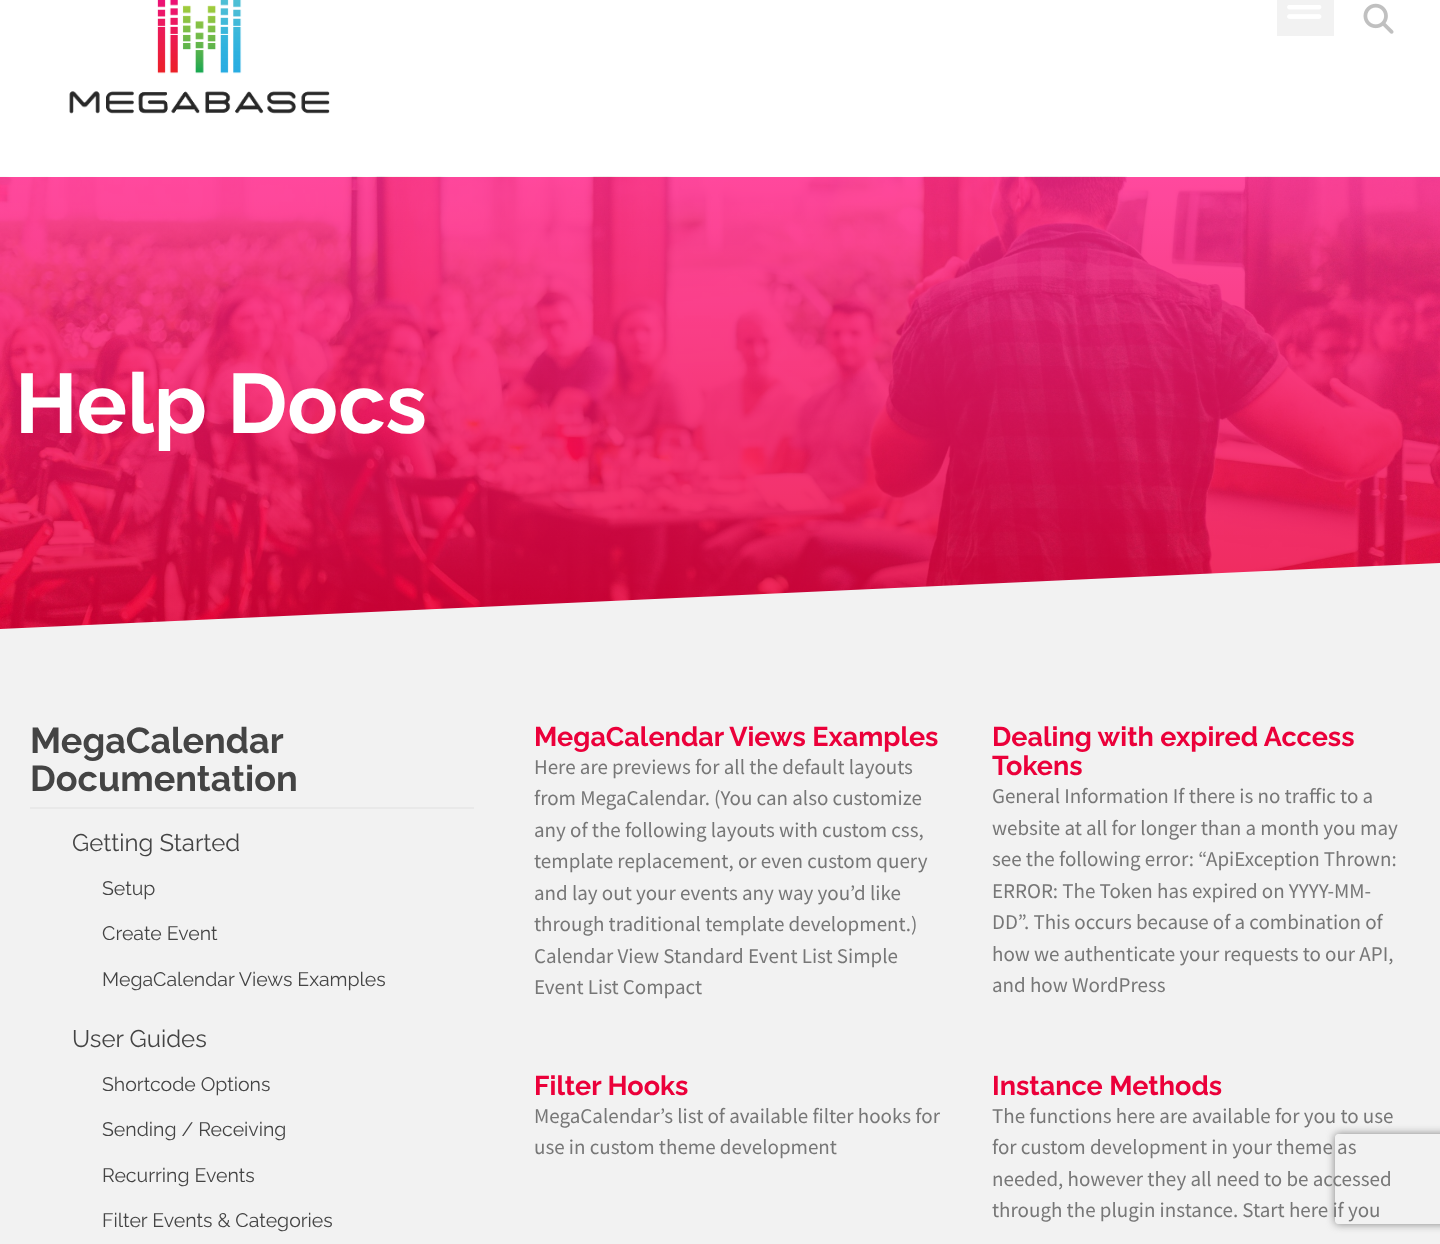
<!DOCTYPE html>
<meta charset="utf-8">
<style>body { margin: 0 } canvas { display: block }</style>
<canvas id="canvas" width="1440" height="1244"></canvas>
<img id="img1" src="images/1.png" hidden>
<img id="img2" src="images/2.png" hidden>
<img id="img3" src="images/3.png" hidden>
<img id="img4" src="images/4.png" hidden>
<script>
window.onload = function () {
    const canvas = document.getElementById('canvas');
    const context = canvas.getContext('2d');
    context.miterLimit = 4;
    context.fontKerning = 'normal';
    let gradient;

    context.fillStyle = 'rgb(242, 242, 242)';
    context.fillRect(0, 0, 1440, 1244);
    context.fillStyle = 'rgb(255, 255, 255)';
    context.fillRect(0, 0, 1440, 177);
    context.drawImage(document.getElementById('img1'), 69, 0, 261, 114);
    context.fillStyle = 'rgb(242, 242, 242)';
    context.fillRect(1277, 0, 57, 36);
    context.drawImage(document.getElementById('img2'), 1287, 5, 35, 14);
    context.drawImage(document.getElementById('img3'), 1363, 3, 31, 31);
    gradient = context.createLinearGradient(720, 177, 720, 632);
    gradient.addColorStop(0, 'rgb(255, 39, 140)');
    gradient.addColorStop(1, 'rgb(235, 0, 58)');
    context.fillStyle = gradient;
    context.fillRect(0, 177, 1440, 452);
    context.drawImage(document.getElementById('img4'), 0, 176, 1440, 453);
    context.fillStyle = 'rgb(242, 242, 242)';
    context.beginPath();
    context.moveTo(-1, 629);
    context.lineTo(-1, 633);
    context.lineTo(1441, 633);
    context.lineTo(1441, 563);
    context.closePath();
    context.fill();
    context.fillStyle = 'rgb(233, 233, 233)';
    context.fillRect(30, 807, 444, 2);
    context.save();
    context.beginPath();
    context.moveTo(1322, 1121);
    context.lineTo(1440, 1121);
    context.lineTo(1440, 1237);
    context.lineTo(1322, 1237);
    context.closePath();
    context.moveTo(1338, 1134);
    context.lineTo(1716, 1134);
    context.bezierCurveTo(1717.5, 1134, 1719, 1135.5, 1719, 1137);
    context.lineTo(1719, 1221);
    context.bezierCurveTo(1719, 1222.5, 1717.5, 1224, 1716, 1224);
    context.lineTo(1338, 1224);
    context.bezierCurveTo(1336.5, 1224, 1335, 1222.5, 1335, 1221);
    context.lineTo(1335, 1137);
    context.bezierCurveTo(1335, 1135.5, 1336.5, 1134, 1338, 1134);
    context.closePath();
    context.clip('evenodd');
    context.fillStyle = 'rgb(128, 128, 128)';
    context.filter = 'blur(4px)';
    context.beginPath();
    context.roundRect(1335, 1134, 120, 90, 3);
    context.fill();
    context.filter = 'none';
    context.restore();
    context.font = 'bold 84px Raleway';
    context.fillStyle = 'rgb(255, 255, 255)';
    context.fillText('Help Docs', 15, 433);
    context.font = 'bold 36px Raleway';
    context.fillStyle = 'rgb(68, 68, 68)';
    context.fillText('MegaCalendar', 30, 753);
    context.fillText('Documentation', 30, 791);
    context.font = '24px Raleway';
    context.fillText('Getting Started', 72, 851);
    context.font = '19.5px Raleway';
    context.fillText('Setup', 102, 895);
    context.fillText('Create Event', 102, 940);
    context.fillText('MegaCalendar Views Examples', 102, 986);
    context.font = '24px Raleway';
    context.fillText('User Guides', 72, 1047);
    context.font = '19.5px Raleway';
    context.fillText('Shortcode Options', 102, 1091);
    context.fillText('Sending / Receiving', 102, 1136);
    context.fillText('Recurring Events', 102, 1182);
    context.fillText('Filter Events & Categories', 102, 1227);
    context.font = 'bold 27px Raleway';
    context.fillStyle = 'rgb(235, 0, 58)';
    context.fillText('MegaCalendar Views Examples', 534, 746);
    context.font = '21px Source Sans Pro';
    context.fillStyle = 'rgb(119, 119, 119)';
    context.fillText('Here are previews for all the default layouts', 534, 774);
    context.fillText('from MegaCalendar. (You can also customize', 534, 805);
    context.fillText('any of the following layouts with custom css,', 534, 837);
    context.fillText('template replacement, or even custom query', 534, 868);
    context.fillText('and lay out your events any way you’d like', 534, 900);
    context.fillText('through traditional template development.)', 534, 931);
    context.fillText('Calendar View Standard Event List Simple', 534, 963);
    context.fillText('Event List Compact', 534, 994);
    context.font = 'bold 27px Raleway';
    context.fillStyle = 'rgb(235, 0, 58)';
    context.fillText('Dealing with expired Access', 992, 746);
    context.fillText('Tokens', 992, 775);
    context.font = '21px Source Sans Pro';
    context.fillStyle = 'rgb(119, 119, 119)';
    context.fillText('General Information If there is no traffic to a', 992, 803);
    context.fillText('website at all for longer than a month you may', 992, 835);
    context.fillText('see the following error: “ApiException Thrown:', 992, 866);
    context.fillText('ERROR: The Token has expired on YYYY-MM-', 992, 898);
    context.fillText('DD”. This occurs because of a combination of', 992, 929);
    context.fillText('how we authenticate your requests to our API,', 992, 961);
    context.fillText('and how WordPress', 992, 992);
    context.font = 'bold 27px Raleway';
    context.fillStyle = 'rgb(235, 0, 58)';
    context.fillText('Filter Hooks', 534, 1095);
    context.font = '21px Source Sans Pro';
    context.fillStyle = 'rgb(119, 119, 119)';
    context.fillText('MegaCalendar’s list of available filter hooks for', 534, 1123);
    context.fillText('use in custom theme development', 534, 1154);
    context.font = 'bold 27px Raleway';
    context.fillStyle = 'rgb(235, 0, 58)';
    context.fillText('Instance Methods', 992, 1095);
    context.font = '21px Source Sans Pro';
    context.fillStyle = 'rgb(119, 119, 119)';
    context.fillText('The functions here are available for you to use', 992, 1123);
    context.fillText('for custom development in your theme as', 992, 1154);
    context.fillText('needed, however they all need to be accessed', 992, 1186);
    context.fillText('through the plugin instance. Start here if you', 992, 1217);
};
</script>
